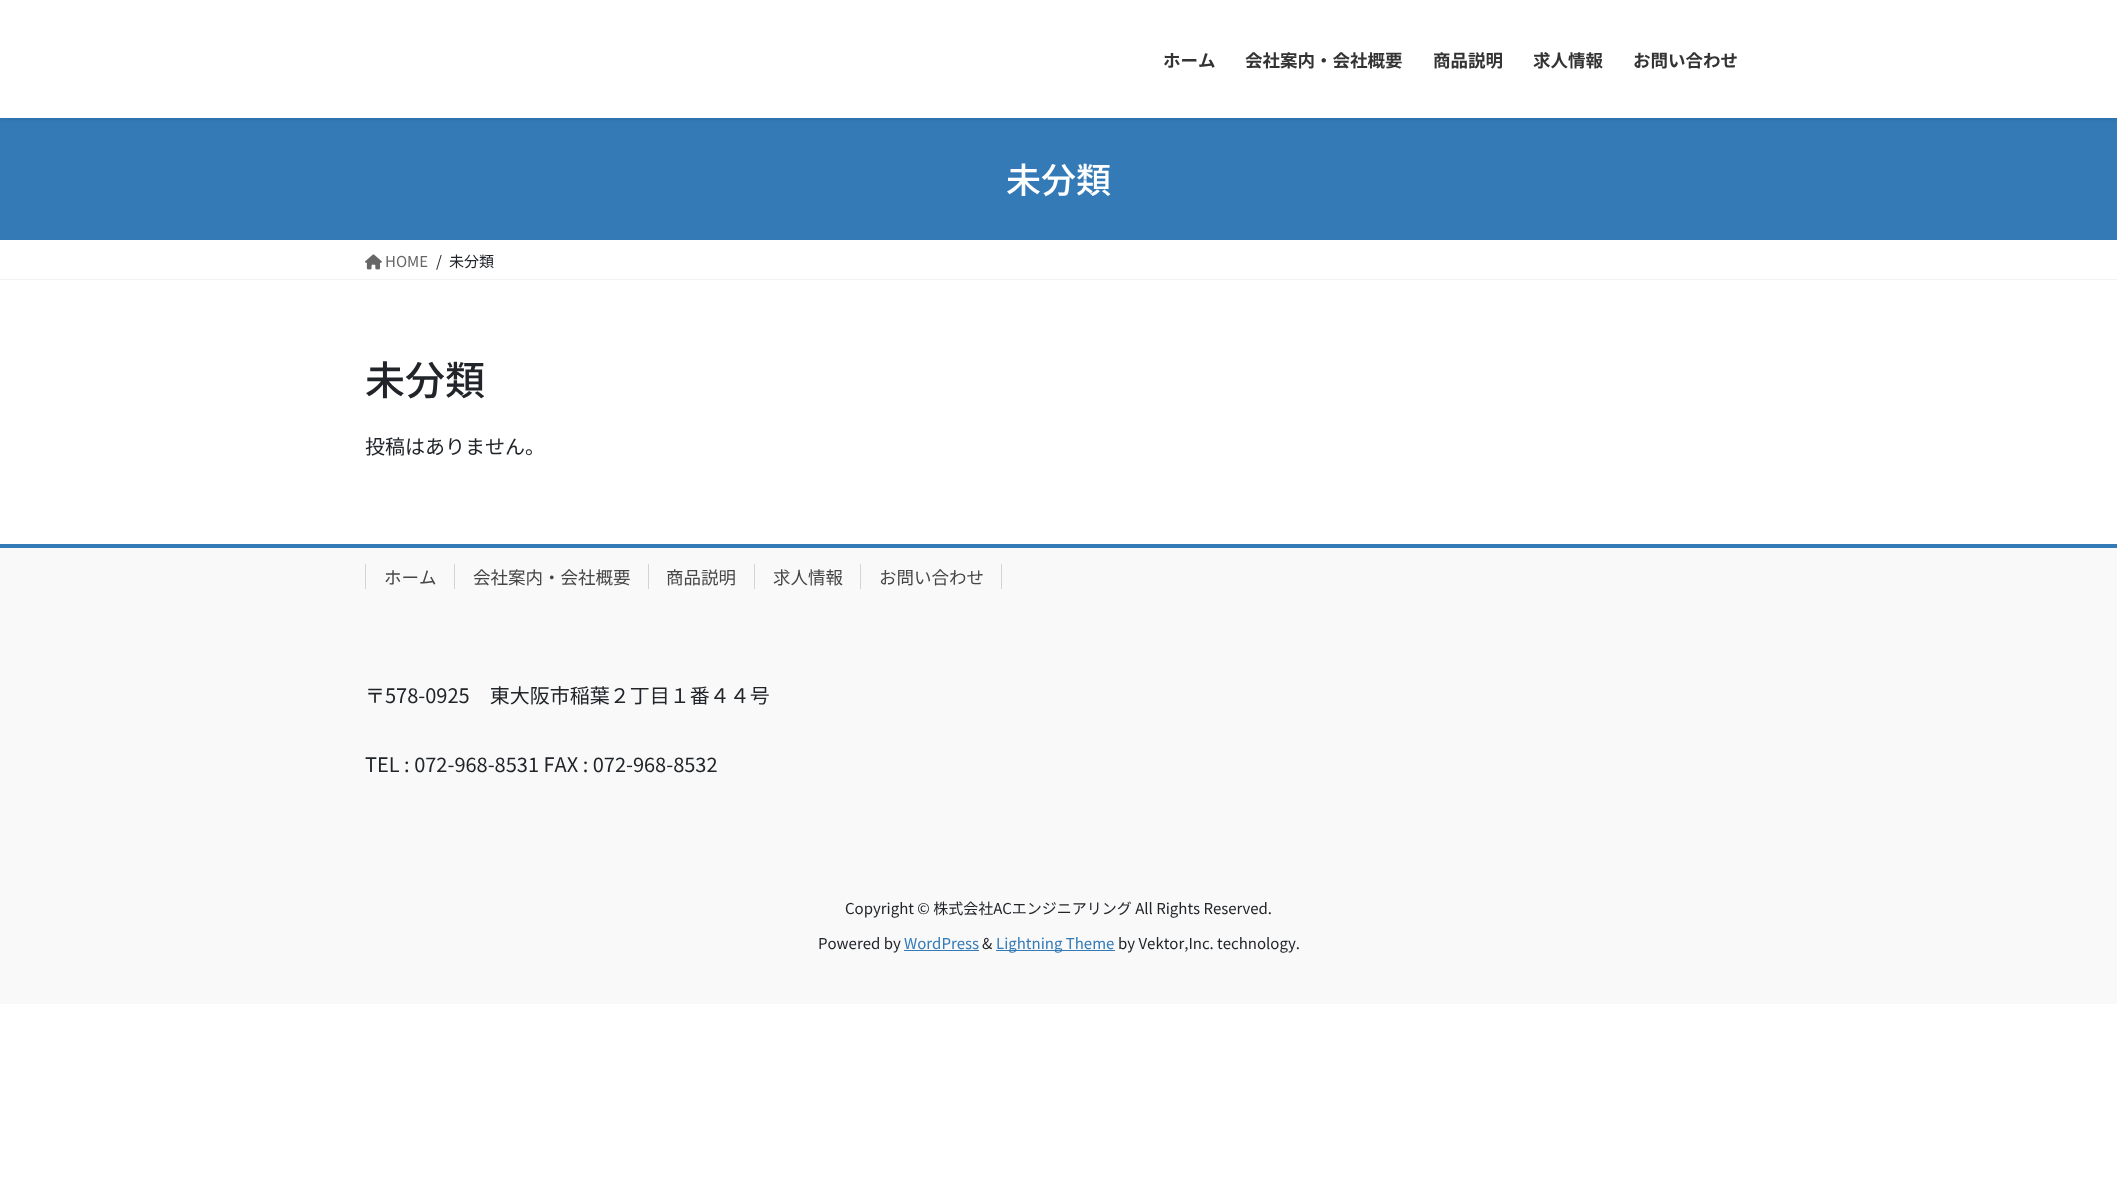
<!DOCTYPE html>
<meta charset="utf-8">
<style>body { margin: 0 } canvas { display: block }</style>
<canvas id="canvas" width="2117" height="1181"></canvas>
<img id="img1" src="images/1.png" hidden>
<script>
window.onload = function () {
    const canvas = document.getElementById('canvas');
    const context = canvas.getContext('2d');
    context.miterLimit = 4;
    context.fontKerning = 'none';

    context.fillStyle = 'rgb(255, 255, 255)';
    context.fillRect(0, 0, 2117, 1181);
    context.fillStyle = 'rgb(51, 122, 183)';
    context.fillRect(0, 118, 2117, 122);
    context.fillStyle = 'rgba(0, 0, 0, 0.1)';
    context.filter = 'blur(2px)';
    context.beginPath();
    context.rect(0, 1, 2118, 118);
    context.fill();
    context.filter = 'none';
    context.fillStyle = 'rgb(255, 255, 255)';
    context.fillRect(0, 0, 2117, 118);
    context.fillStyle = 'rgb(242, 242, 242)';
    context.fillRect(0, 279, 2117, 1);
    context.drawImage(document.getElementById('img1'), 365, 254, 17, 16);
    context.fillStyle = 'rgb(249, 249, 249)';
    context.fillRect(0, 548, 2117, 456);
    context.fillStyle = 'rgb(51, 122, 183)';
    context.fillRect(0, 544, 2117, 4);
    context.fillStyle = 'rgb(212, 212, 212)';
    context.fillRect(365, 564, 1, 25);
    context.fillRect(454, 564, 1, 25);
    context.fillRect(648, 564, 1, 25);
    context.fillRect(754, 564, 1, 25);
    context.fillRect(1001, 564, 1, 25);
    context.fillRect(860, 564, 1, 25);
    context.fillStyle = 'rgb(51, 122, 183)';
    context.fillRect(904, 950, 75, 1);
    context.fillRect(996, 950, 119, 1);
    context.font = 'bold 17.5px Noto Sans JP';
    context.fillStyle = 'rgb(51, 51, 51)';
    context.fillText('ホーム', 1163, 67);
    context.fillText('会社案内・会社概要', 1245, 67);
    context.fillText('商品説明', 1433, 67);
    context.fillText('求人情報', 1533, 67);
    context.fillText('お問い合わせ', 1633, 67);
    context.font = '500 35px Noto Sans JP';
    context.fillStyle = 'rgb(255, 255, 255)';
    context.fillText('未分類', 1006, 193);
    context.font = '15px Noto Sans JP';
    context.fillStyle = 'rgb(102, 102, 102)';
    context.fillText('HOME', 385, 267);
    context.fillStyle = 'rgb(33, 37, 41)';
    context.fillText('/', 436, 267);
    context.fillText('未分類', 449, 267);
    context.font = '500 40px Noto Sans JP';
    context.fillText('未分類', 365, 395);
    context.font = '20px Noto Sans JP';
    context.fillText('投稿はありません。', 365, 454);
    context.font = '17.5px Noto Sans JP';
    context.fillStyle = 'rgb(70, 70, 70)';
    context.fillText('ホーム', 384, 584);
    context.fillText('会社案内・会社概要', 473, 584);
    context.fillText('商品説明', 666, 584);
    context.fillText('求人情報', 773, 584);
    context.fillText('お問い合わせ', 879, 584);
    context.font = '20px Noto Sans JP';
    context.fillStyle = 'rgb(33, 37, 41)';
    context.fillText('〒578-0925　東大阪市稲葉２丁目１番４４号', 365, 703);
    context.fillText('TEL : 072-968-8531 FAX : 072-968-8532', 365, 772);
    context.font = '15px Noto Sans JP';
    context.fillText('Copyright © 株式会社ACエンジニアリング All Rights Reserved.', 845, 914);
    context.fillText('Powered by', 818, 949);
    context.fillStyle = 'rgb(51, 122, 183)';
    context.fillText('WordPress', 904, 949);
    context.fillStyle = 'rgb(33, 37, 41)';
    context.fillText('&', 982, 949);
    context.fillStyle = 'rgb(51, 122, 183)';
    context.fillText('Lightning Theme', 996, 949);
    context.fillStyle = 'rgb(33, 37, 41)';
    context.fillText('by Vektor,Inc. technology.', 1118, 949);
};
</script>
